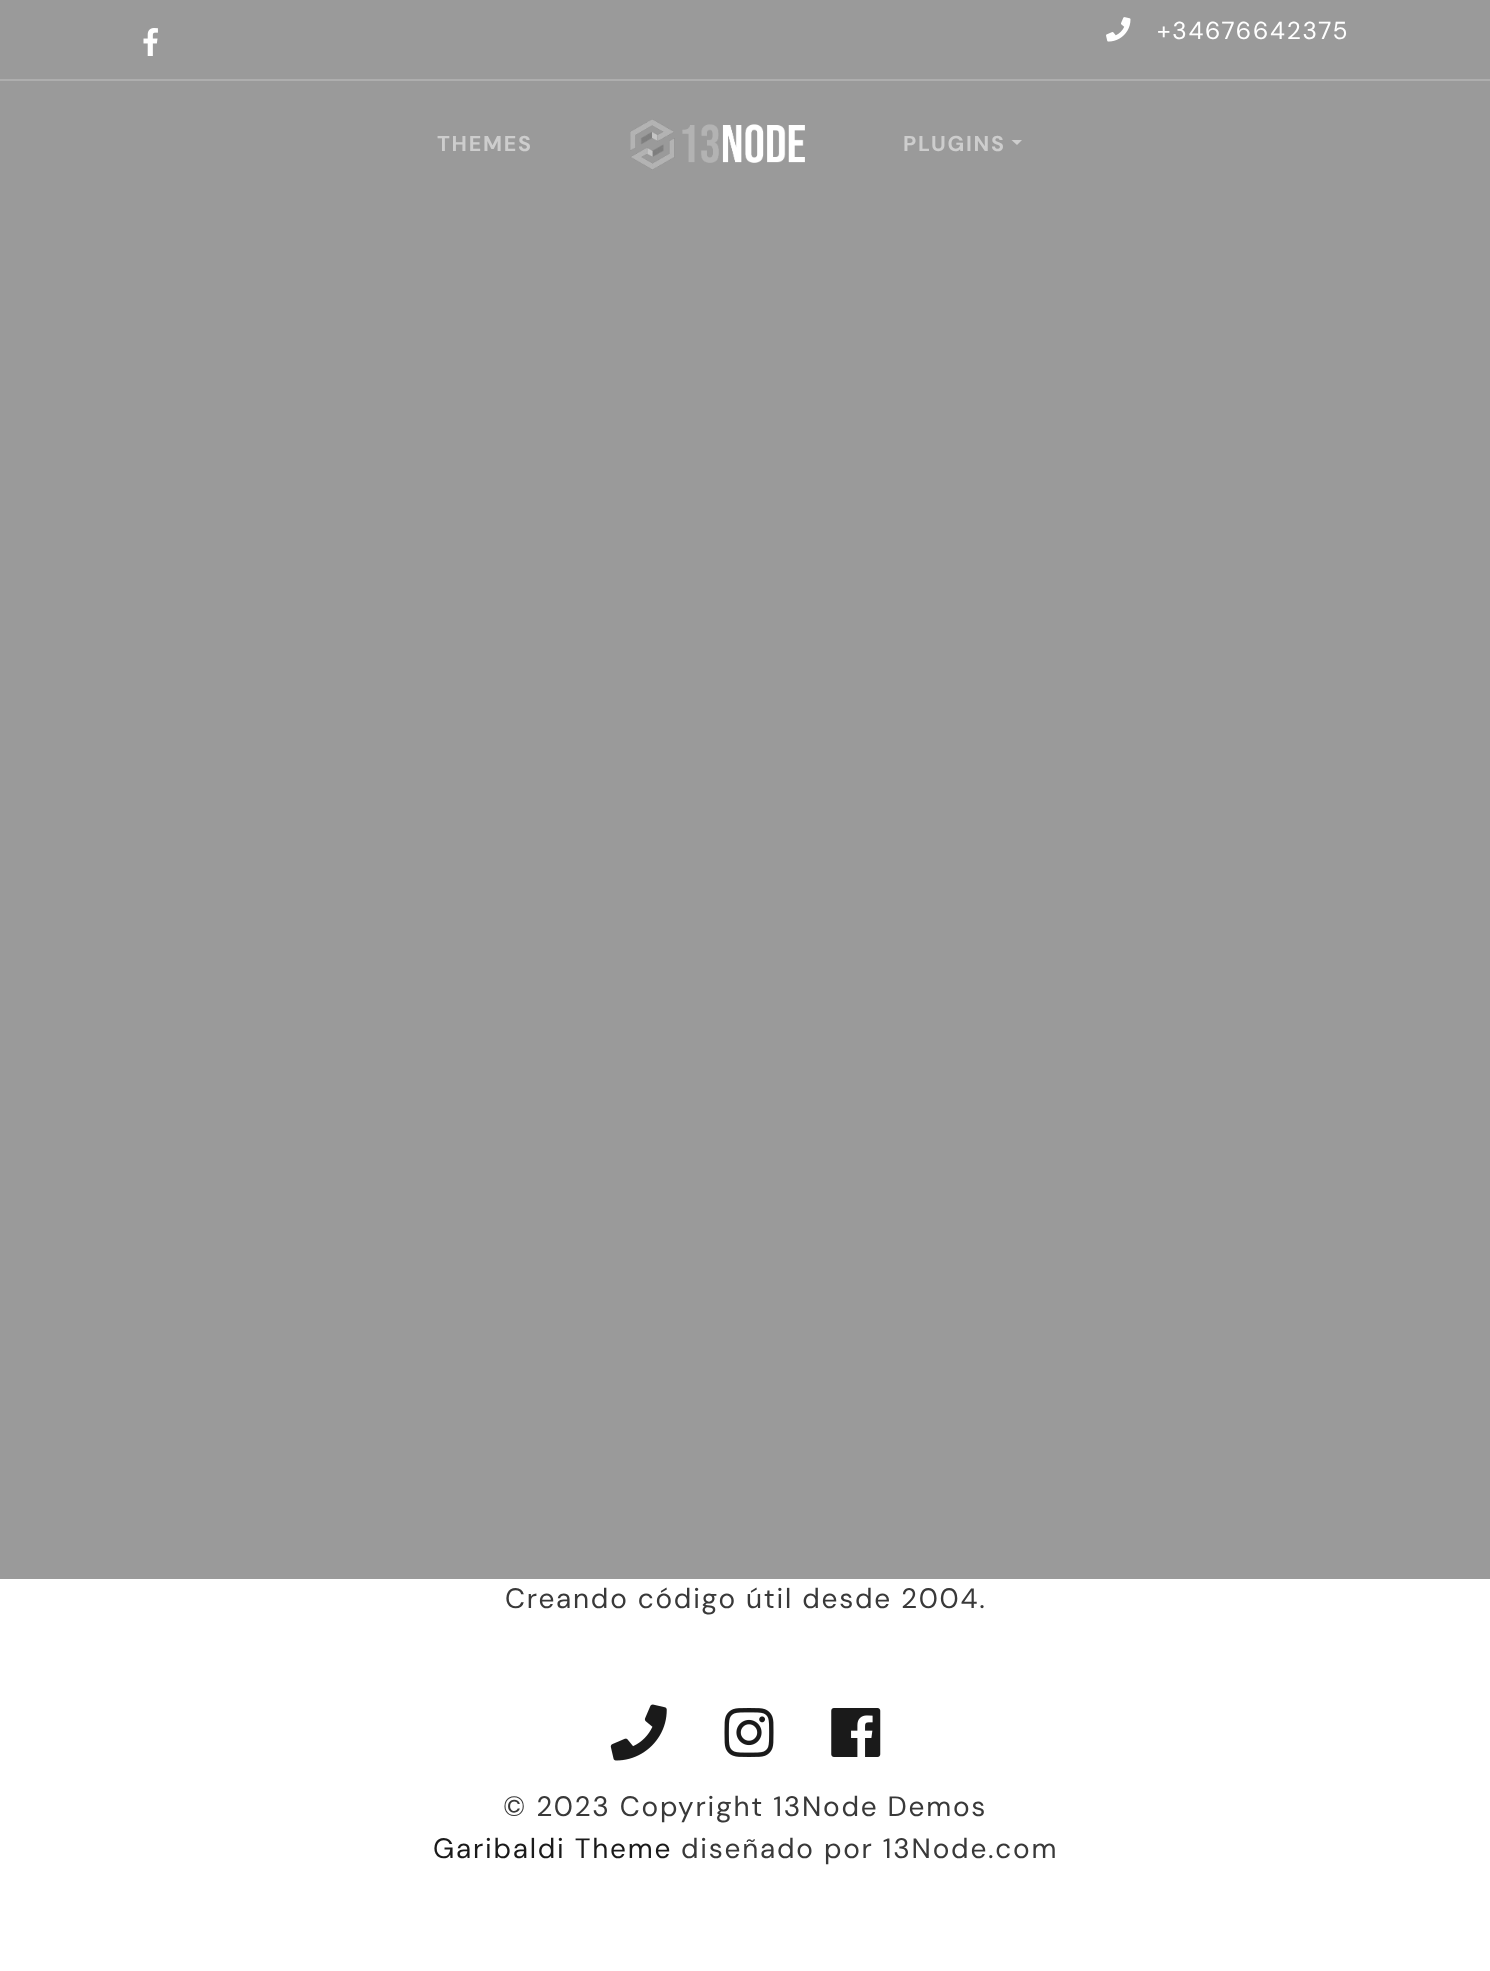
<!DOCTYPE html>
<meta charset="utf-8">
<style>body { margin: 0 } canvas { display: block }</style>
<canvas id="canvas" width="1490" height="1971"></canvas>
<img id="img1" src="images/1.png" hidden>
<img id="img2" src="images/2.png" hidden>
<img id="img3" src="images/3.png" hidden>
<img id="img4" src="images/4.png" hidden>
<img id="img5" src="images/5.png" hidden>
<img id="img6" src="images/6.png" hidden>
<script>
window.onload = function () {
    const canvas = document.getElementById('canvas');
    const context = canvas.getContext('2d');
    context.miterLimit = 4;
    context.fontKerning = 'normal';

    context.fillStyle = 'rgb(255, 255, 255)';
    context.fillRect(0, 0, 1490, 1971);
    context.fillStyle = 'rgb(154, 154, 154)';
    context.fillRect(0, 0, 1490, 1579);
    context.fillStyle = 'rgb(174, 174, 174)';
    context.fillRect(0, 79, 1490, 2);
    context.drawImage(document.getElementById('img1'), 143, 28, 15, 28);
    context.drawImage(document.getElementById('img2'), 1106, 17, 25, 25);
    context.drawImage(document.getElementById('img3'), 630, 119, 175, 51);
    context.fillStyle = 'rgb(205, 205, 205)';
    context.beginPath();
    context.moveTo(1011.5, 140);
    context.lineTo(1022, 140);
    context.lineTo(1017, 145);
    context.closePath();
    context.fill();
    context.drawImage(document.getElementById('img4'), 610, 1704, 57, 57);
    context.drawImage(document.getElementById('img5'), 724, 1708, 50, 49);
    context.drawImage(document.getElementById('img6'), 831, 1708, 50, 49);
    context.letterSpacing = '1.75px';
    context.font = '24.5px DM Sans';
    context.fillStyle = 'rgb(255, 255, 255)';
    context.fillText('+34676642375', 1157, 39);
    context.font = 'bold 21.5px DM Sans';
    context.fillStyle = 'rgb(205, 205, 205)';
    context.fillText('THEMES', 437, 151);
    context.fillText('PLUGINS', 903, 151);
    context.font = '28px DM Sans';
    context.fillStyle = 'rgb(57, 57, 57)';
    context.fillText('Creando código útil desde 2004.', 505, 1608);
    context.fillText('© 2023 Copyright 13Node Demos', 503, 1816);
    context.fillStyle = 'rgb(26, 26, 26)';
    context.fillText('Garibaldi Theme', 433, 1858);
    context.fillStyle = 'rgb(57, 57, 57)';
    context.fillText('diseñado por 13Node.com', 681, 1858);
};
</script>
